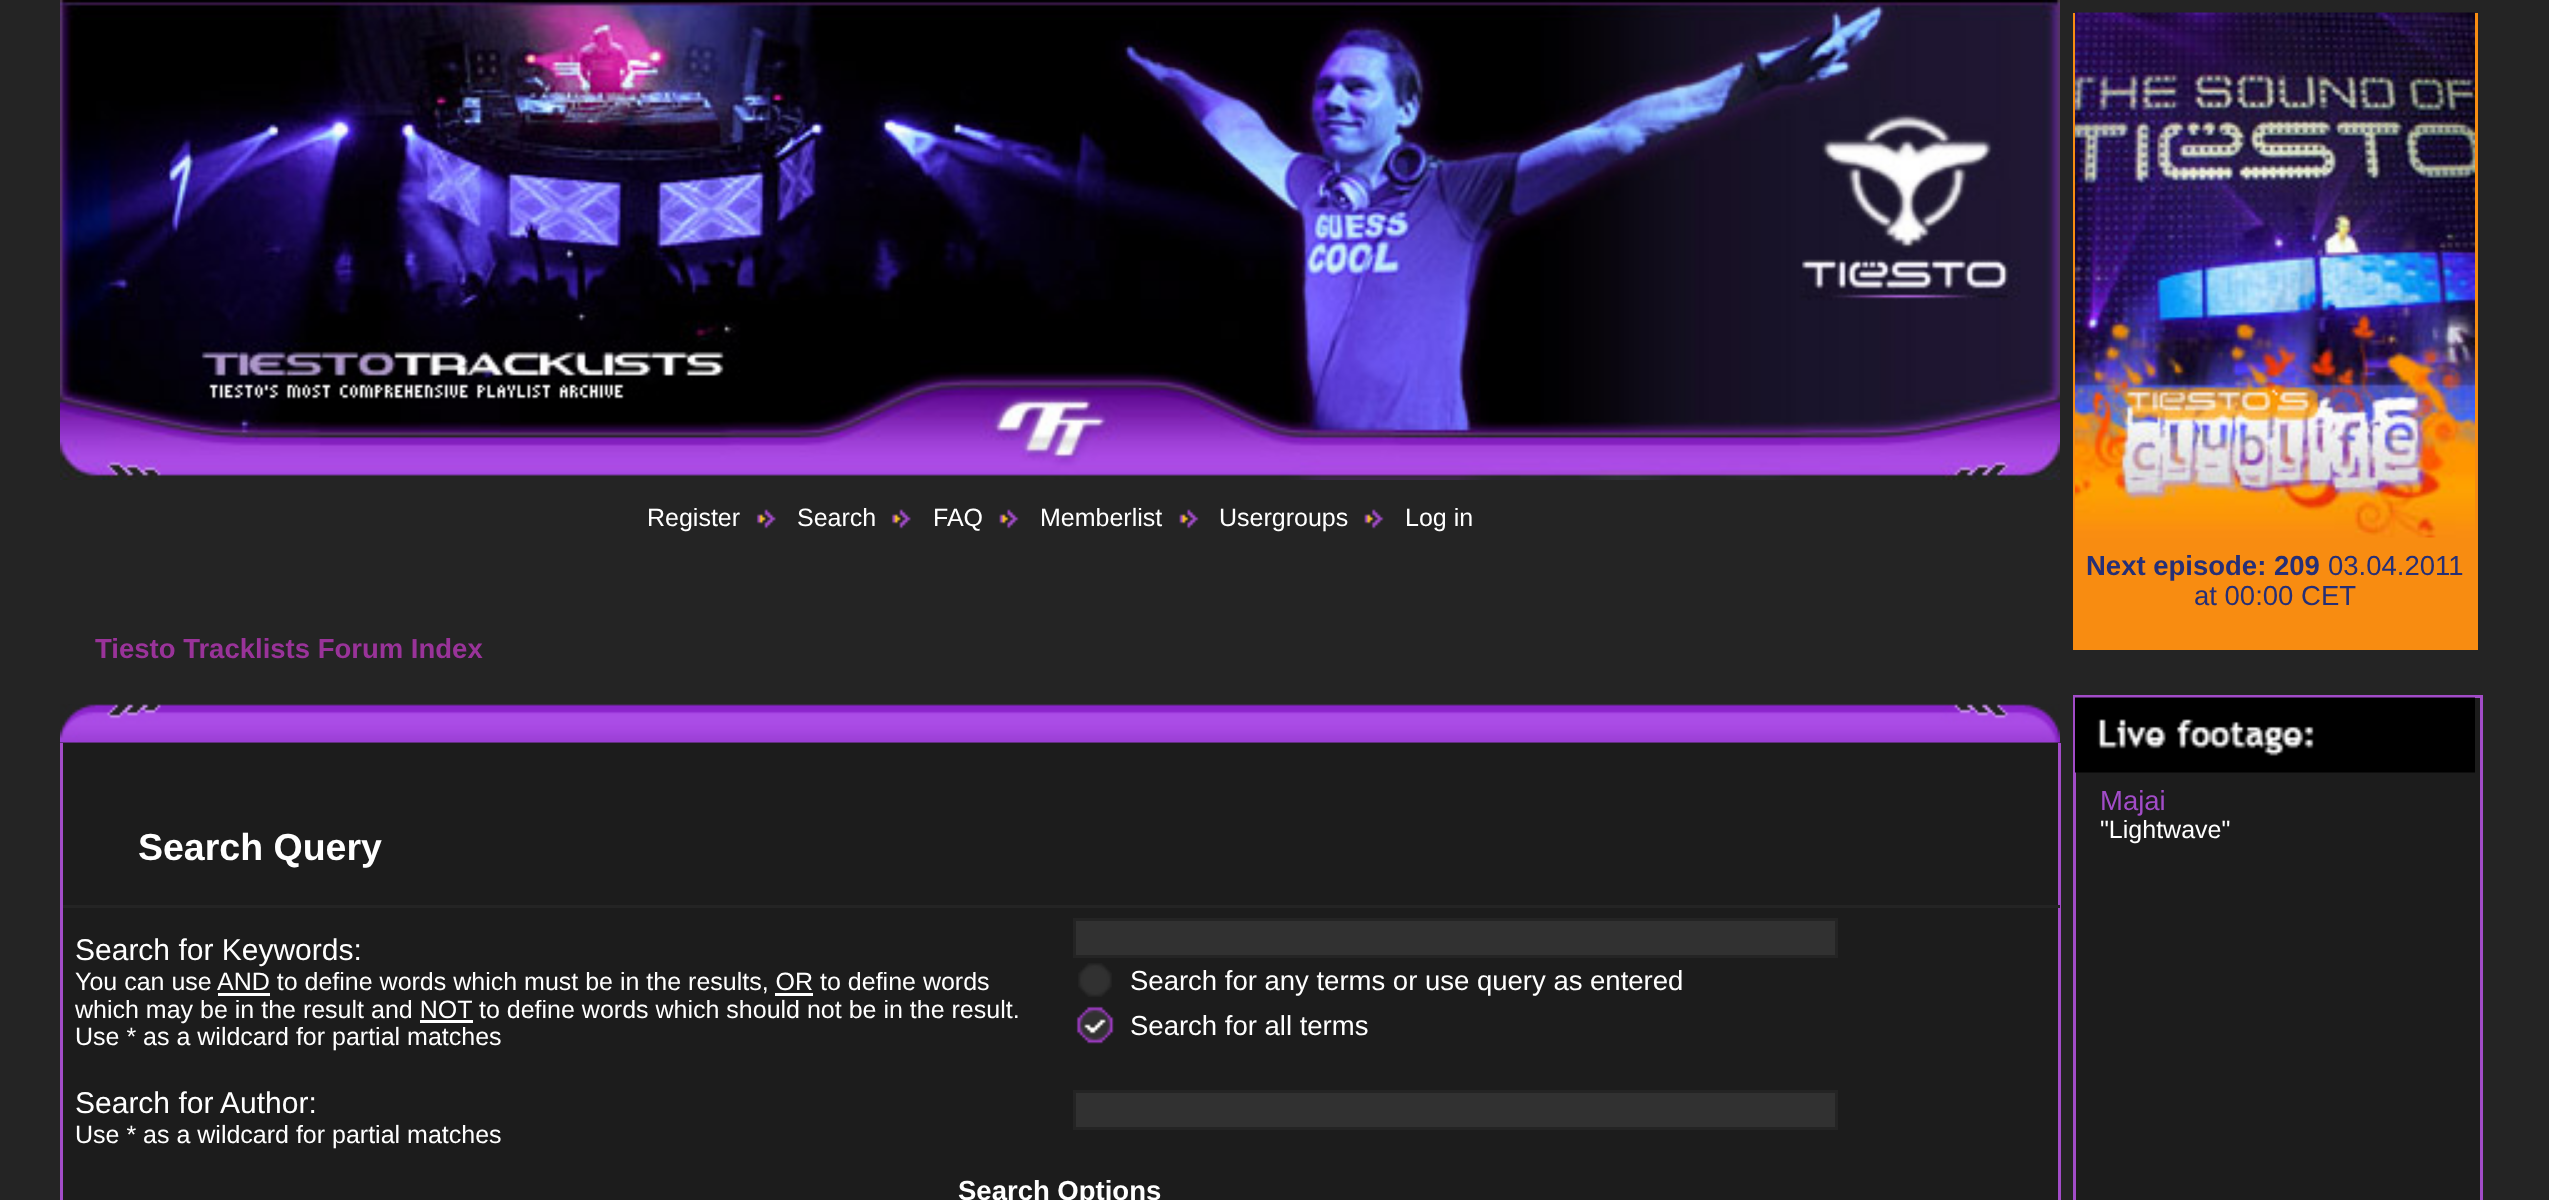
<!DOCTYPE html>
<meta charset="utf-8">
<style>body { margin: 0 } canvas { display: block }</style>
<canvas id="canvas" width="2549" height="1200"></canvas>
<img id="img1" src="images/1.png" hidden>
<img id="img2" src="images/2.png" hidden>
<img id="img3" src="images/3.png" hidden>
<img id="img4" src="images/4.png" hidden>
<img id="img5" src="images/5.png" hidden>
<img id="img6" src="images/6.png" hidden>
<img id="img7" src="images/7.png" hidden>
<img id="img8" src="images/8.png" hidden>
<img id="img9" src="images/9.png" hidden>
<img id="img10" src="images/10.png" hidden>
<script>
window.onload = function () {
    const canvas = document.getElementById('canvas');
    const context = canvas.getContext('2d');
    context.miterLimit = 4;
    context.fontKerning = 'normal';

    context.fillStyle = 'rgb(36, 36, 36)';
    context.fillRect(0, 0, 2549, 1200);
    context.drawImage(document.getElementById('img1'), 60, 0, 2000, 480);
    context.drawImage(document.getElementById('img2'), 756, 509, 20, 20);
    context.drawImage(document.getElementById('img2'), 891, 509, 20, 20);
    context.drawImage(document.getElementById('img3'), 999, 509, 20, 20);
    context.drawImage(document.getElementById('img4'), 1179, 509, 20, 20);
    context.drawImage(document.getElementById('img5'), 1364, 509, 20, 20);
    context.drawImage(document.getElementById('img6'), 60, 704, 2000, 39);
    context.fillStyle = 'rgb(162, 76, 200)';
    context.fillRect(2058, 743, 3, 457);
    context.fillRect(60, 743, 3, 457);
    context.fillStyle = 'rgb(28, 28, 28)';
    context.fillRect(63, 743, 1995, 162);
    context.fillStyle = 'rgb(36, 36, 36)';
    context.fillRect(2058, 905, 2, 3);
    context.fillStyle = 'rgb(28, 28, 28)';
    context.fillRect(63, 908, 1995, 152);
    context.fillStyle = 'rgb(255, 255, 255)';
    context.fillRect(218, 993, 52, 3);
    context.fillRect(775, 993, 38, 3);
    context.fillRect(420, 1020, 53, 3);
    context.fillStyle = 'rgb(49, 49, 49)';
    context.beginPath();
    context.rect(1074.5, 919.5, 762, 37);
    context.fill();
    context.strokeStyle = 'rgb(36, 36, 36)';
    context.lineWidth = 3;
    context.stroke();
    context.drawImage(document.getElementById('img7'), 1078, 963, 34, 34);
    context.drawImage(document.getElementById('img8'), 1076, 1006, 38, 38);
    context.fillStyle = 'rgb(28, 28, 28)';
    context.fillRect(63, 1060, 1995, 140);
    context.fillStyle = 'rgb(49, 49, 49)';
    context.beginPath();
    context.rect(1074.5, 1091.5, 762, 37);
    context.fill();
    context.stroke();
    context.fillStyle = 'rgb(248, 140, 17)';
    context.fillRect(2073, 13, 405, 637);
    context.drawImage(document.getElementById('img9'), 2075, 12, 400, 526);
    context.fillStyle = 'rgb(28, 28, 28)';
    context.beginPath();
    context.rect(2074.5, 696.5, 407, 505);
    context.fill();
    context.strokeStyle = 'rgb(162, 76, 200)';
    context.stroke();
    context.drawImage(document.getElementById('img10'), 2075, 697, 400, 76);
    context.font = '25px Liberation Sans';
    context.fillStyle = 'rgb(255, 255, 255)';
    context.fillText('Register', 647, 526);
    context.fillText('Search', 797, 526);
    context.fillText('FAQ', 933, 526);
    context.fillText('Memberlist', 1040, 526);
    context.fillText('Usergroups', 1219, 526);
    context.fillText('Log in', 1405, 526);
    context.font = 'bold 27.5px Liberation Sans';
    context.fillStyle = 'rgb(153, 51, 153)';
    context.fillText('Tiesto Tracklists Forum Index', 95, 658);
    context.font = 'bold 37.5px Liberation Sans';
    context.fillStyle = 'rgb(255, 255, 255)';
    context.fillText('Search Query', 138, 860);
    context.font = '30px Liberation Sans';
    context.fillText('Search for Keywords:', 75, 960);
    context.font = '25px Liberation Sans';
    context.fillText('You can use', 75, 990);
    context.fillText('AND to define words which must be in the results, OR to define words', 217, 990);
    context.fillText('which may be in the result and NOT', 75, 1018);
    context.fillText('to define words which should not be in the result.', 479, 1018);
    context.fillText('Use * as a wildcard for partial matches', 75, 1045);
    context.font = '27.5px Liberation Sans';
    context.fillText('Search for any terms or use query as entered', 1130, 990);
    context.fillText('Search for all terms', 1130, 1035);
    context.font = '30px Liberation Sans';
    context.fillText('Search for Author:', 75, 1113);
    context.font = '25px Liberation Sans';
    context.fillText('Use * as a wildcard for partial matches', 75, 1143);
    context.font = 'bold 27.5px Liberation Sans';
    context.fillText('Search Options', 958, 1200);
    context.fillStyle = 'rgb(38, 47, 118)';
    context.fillText('Next episode: 209', 2086, 575);
    context.font = '27.5px Liberation Sans';
    context.fillText('03.04.2011', 2328, 575);
    context.fillText('at 00:00 CET', 2194, 605);
    context.fillStyle = 'rgb(162, 76, 200)';
    context.fillText('Majai', 2100, 810);
    context.font = '25px Liberation Sans';
    context.fillStyle = 'rgb(255, 255, 255)';
    context.fillText('"Lightwave"', 2100, 838);
};
</script>
